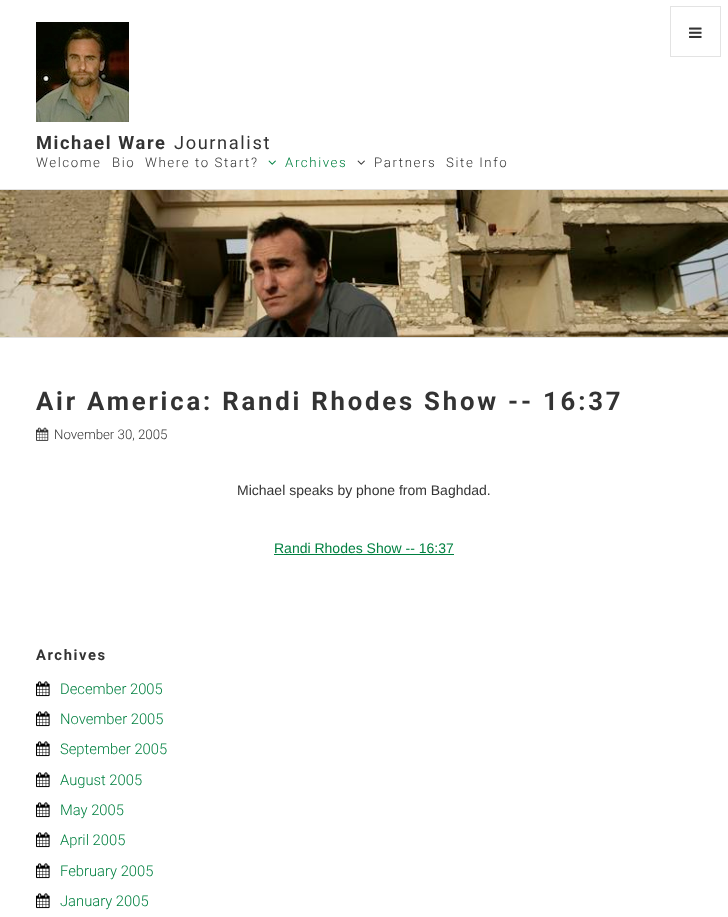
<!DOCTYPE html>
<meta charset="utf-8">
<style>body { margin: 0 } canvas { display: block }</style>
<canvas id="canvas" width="728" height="917"></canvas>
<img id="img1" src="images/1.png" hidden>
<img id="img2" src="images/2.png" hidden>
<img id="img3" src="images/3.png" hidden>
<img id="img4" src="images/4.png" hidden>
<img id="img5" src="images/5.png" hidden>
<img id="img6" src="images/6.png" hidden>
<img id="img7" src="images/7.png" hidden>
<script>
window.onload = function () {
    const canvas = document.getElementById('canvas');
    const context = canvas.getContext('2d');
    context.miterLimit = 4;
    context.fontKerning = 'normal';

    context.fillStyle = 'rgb(255, 255, 255)';
    context.fillRect(0, 0, 728, 917);
    context.strokeStyle = 'rgb(227, 227, 227)';
    context.strokeRect(670.5, 6.5, 50, 50);
    context.drawImage(document.getElementById('img1'), 689, 27, 13, 11);
    context.fillStyle = 'rgb(227, 227, 227)';
    context.fillRect(0, 189, 728, 1);
    context.drawImage(document.getElementById('img2'), 36, 22, 93, 100);
    context.drawImage(document.getElementById('img3'), 268, 160, 8, 5);
    context.drawImage(document.getElementById('img4'), 357, 160, 8, 5);
    context.drawImage(document.getElementById('img5'), 0, 190, 728, 147);
    context.fillRect(0, 337, 728, 1);
    context.drawImage(document.getElementById('img6'), 36, 427, 13, 14);
    context.fillStyle = 'rgb(0, 128, 64)';
    context.fillRect(274, 554, 180, 1);
    context.drawImage(document.getElementById('img7'), 36, 681, 14, 16);
    context.drawImage(document.getElementById('img7'), 36, 711, 14, 16);
    context.drawImage(document.getElementById('img7'), 36, 741, 14, 16);
    context.drawImage(document.getElementById('img7'), 36, 772, 14, 16);
    context.drawImage(document.getElementById('img7'), 36, 802, 14, 16);
    context.drawImage(document.getElementById('img7'), 36, 832, 14, 16);
    context.drawImage(document.getElementById('img7'), 36, 863, 14, 16);
    context.drawImage(document.getElementById('img7'), 36, 893, 14, 16);
    context.letterSpacing = '1.6px';
    context.font = 'bold 18.25px Roboto';
    context.fillStyle = 'rgb(51, 51, 51)';
    context.fillText('Michael Ware', 36, 149);
    context.font = '18.25px Roboto';
    context.fillText('Journalist', 174, 149);
    context.font = '300 13.25px Roboto';
    context.fillText('Welcome', 36, 167);
    context.fillText('Bio', 112, 167);
    context.fillText('Where to Start?', 145, 167);
    context.fillStyle = 'rgb(0, 128, 64)';
    context.fillText('Archives', 285, 167);
    context.fillStyle = 'rgb(51, 51, 51)';
    context.fillText('Partners', 374, 167);
    context.fillText('Site Info', 446, 167);
    context.letterSpacing = '2.8px';
    context.font = 'bold 25.7px Roboto';
    context.fillText('Air America: Randi Rhodes Show -- 16:37', 36, 410);
    context.letterSpacing = '0px';
    context.font = '300 13.25px Roboto';
    context.fillText('November 30, 2005', 54, 439);
    context.font = '14px Liberation Sans';
    context.fillText('Michael speaks by phone from Baghdad.', 237, 495);
    context.fillStyle = 'rgb(0, 128, 64)';
    context.fillText('Randi Rhodes Show -- 16:37', 274, 553);
    context.letterSpacing = '1.6px';
    context.font = 'bold 14.75px Roboto';
    context.fillStyle = 'rgb(51, 51, 51)';
    context.fillText('Archives', 36, 660);
    context.letterSpacing = '0px';
    context.font = '300 14.75px Roboto';
    context.fillStyle = 'rgb(0, 128, 64)';
    context.fillText('December 2005', 60, 694);
    context.fillText('November 2005', 60, 724);
    context.fillText('September 2005', 60, 754);
    context.fillText('August 2005', 60, 785);
    context.fillText('May 2005', 60, 815);
    context.fillText('April 2005', 60, 845);
    context.fillText('February 2005', 60, 876);
    context.fillText('January 2005', 60, 906);
};
</script>
